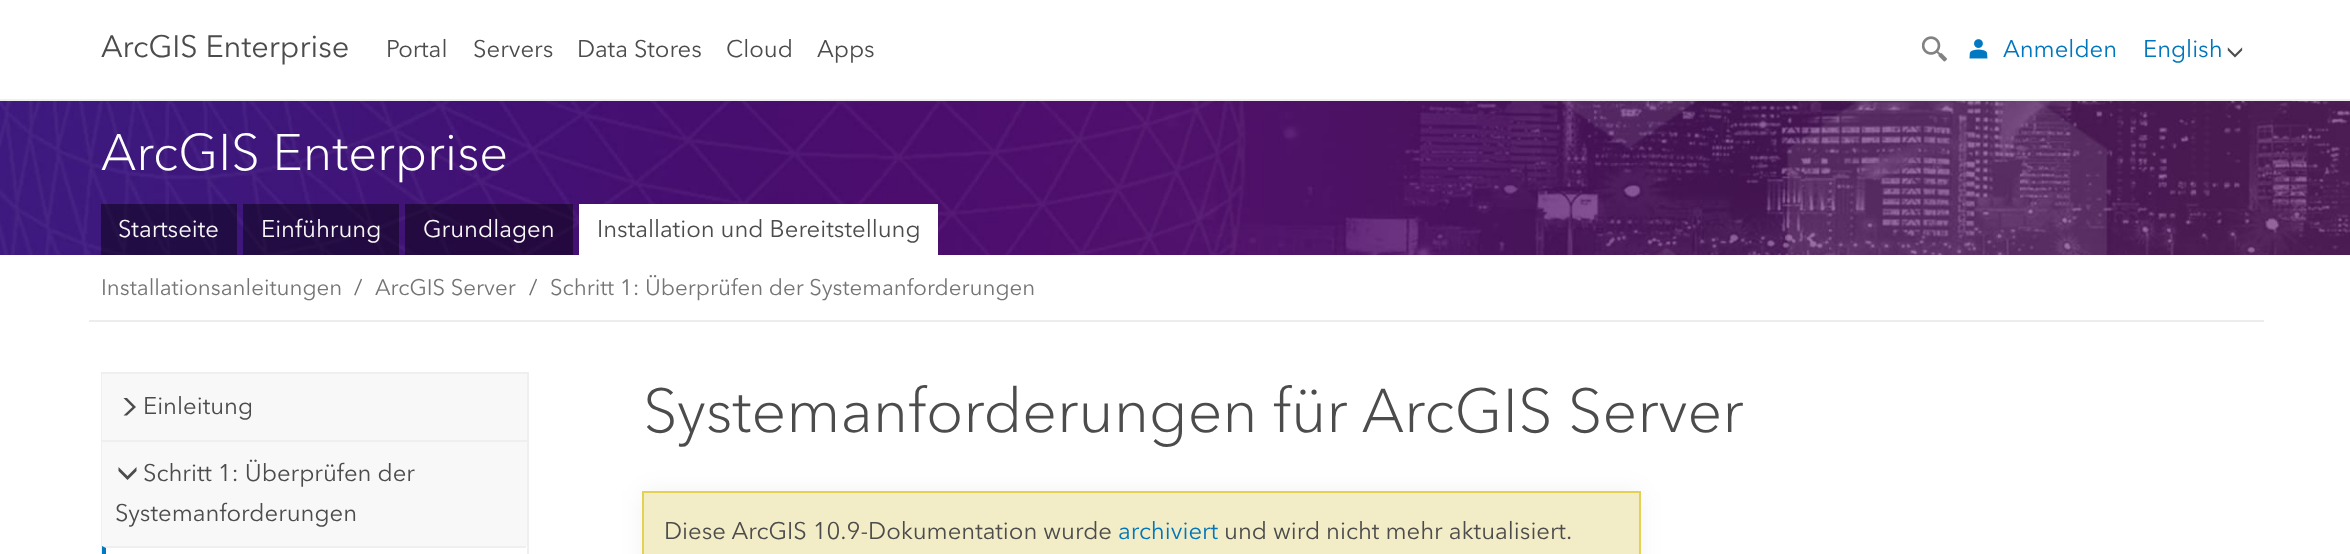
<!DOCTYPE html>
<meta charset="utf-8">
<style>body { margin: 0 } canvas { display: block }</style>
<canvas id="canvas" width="2350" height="554"></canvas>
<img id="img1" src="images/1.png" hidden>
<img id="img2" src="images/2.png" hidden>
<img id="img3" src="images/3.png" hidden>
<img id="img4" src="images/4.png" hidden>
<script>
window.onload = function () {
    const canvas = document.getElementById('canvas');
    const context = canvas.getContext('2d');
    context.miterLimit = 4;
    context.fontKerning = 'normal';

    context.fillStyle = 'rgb(255, 255, 255)';
    context.fillRect(0, 0, 2350, 554);
    context.fillStyle = 'rgb(239, 239, 239)';
    context.fillRect(0, 99, 2350, 2);
    context.drawImage(document.getElementById('img1'), 1922, 36, 25, 26);
    context.drawImage(document.getElementById('img2'), 1969, 39, 19, 20);
    context.drawImage(document.getElementById('img3'), 2227, 47, 16, 11);
    context.drawImage(document.getElementById('img4'), 0, 101, 2350, 154);
    context.fillStyle = 'rgba(0, 0, 0, 0.45)';
    context.fillRect(101, 204, 136, 51);
    context.fillRect(243, 204, 156, 51);
    context.fillRect(405, 204, 168, 51);
    context.fillStyle = 'rgb(255, 255, 255)';
    context.fillRect(579, 204, 359, 51);
    context.fillStyle = 'rgb(237, 237, 237)';
    context.fillRect(89, 320, 2175, 2);
    context.fillStyle = 'rgb(239, 239, 239)';
    context.fillRect(527, 372, 2, 182);
    context.fillRect(101, 372, 1, 182);
    context.fillStyle = 'rgb(248, 248, 248)';
    context.fillRect(102, 374, 425, 66);
    context.fillStyle = 'rgb(239, 239, 239)';
    context.fillRect(102, 372, 425, 2);
    context.fillStyle = 'rgb(76, 76, 76)';
    context.beginPath();
    context.moveTo(123.5, 398);
    context.lineTo(127, 398);
    context.lineTo(136, 407);
    context.lineTo(127, 415.5);
    context.lineTo(123.5, 415.5);
    context.lineTo(132.5, 407);
    context.closePath();
    context.fill();
    context.fillStyle = 'rgb(248, 248, 248)';
    context.fillRect(102, 442, 425, 104);
    context.fillStyle = 'rgb(239, 239, 239)';
    context.fillRect(102, 440, 425, 2);
    context.fillStyle = 'rgb(76, 76, 76)';
    context.beginPath();
    context.moveTo(136.5, 467);
    context.lineTo(136.5, 471);
    context.lineTo(127.5, 480);
    context.lineTo(118.5, 471);
    context.lineTo(118.5, 467);
    context.lineTo(127.5, 476);
    context.closePath();
    context.fill();
    context.fillStyle = 'rgb(239, 239, 239)';
    context.beginPath();
    context.moveTo(102, 546);
    context.lineTo(526, 546);
    context.lineTo(526, 548);
    context.lineTo(106, 548);
    context.closePath();
    context.fill();
    context.fillStyle = 'rgb(0, 121, 193)';
    context.beginPath();
    context.moveTo(102, 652);
    context.lineTo(102, 546);
    context.lineTo(106, 548);
    context.lineTo(106, 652);
    context.closePath();
    context.fill();
    context.fillStyle = 'rgba(0, 0, 0, 0.05)';
    context.filter = 'blur(12px)';
    context.beginPath();
    context.rect(642, 491, 999, 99);
    context.fill();
    context.filter = 'none';
    context.fillStyle = 'rgb(243, 237, 199)';
    context.beginPath();
    context.rect(643, 492, 997, 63);
    context.fill();
    context.strokeStyle = 'rgb(228, 209, 84)';
    context.lineWidth = 2;
    context.stroke();
    context.font = '30.75px Avenir Next';
    context.fillStyle = 'rgb(76, 76, 76)';
    context.fillText('ArcGIS Enterprise', 101, 57);
    context.font = '23.9px Avenir Next';
    context.fillText('Portal', 386, 57);
    context.fillText('Servers', 473, 57);
    context.fillText('Data Stores', 577, 57);
    context.fillText('Cloud', 726, 57);
    context.fillText('Apps', 817, 57);
    context.fillStyle = 'rgb(0, 118, 188)';
    context.fillText('Anmelden', 2003, 57);
    context.fillText('English', 2143, 57);
    context.font = '300 51px Avenir Next';
    context.fillStyle = 'rgb(255, 255, 255)';
    context.fillText('ArcGIS Enterprise', 101, 170);
    context.font = '23.9px Avenir Next';
    context.fillStyle = 'rgb(248, 248, 248)';
    context.fillText('Startseite', 118, 237);
    context.fillText('Einführung', 261, 237);
    context.fillText('Grundlagen', 423, 237);
    context.fillStyle = 'rgb(76, 76, 76)';
    context.fillText('Installation und Bereitstellung', 597, 237);
    context.font = '22.3px Avenir Next';
    context.fillStyle = 'rgb(117, 117, 117)';
    context.fillText('Installationsanleitungen', 101, 295);
    context.fillStyle = 'rgb(110, 110, 110)';
    context.fillText('/', 354, 295);
    context.fillStyle = 'rgb(117, 117, 117)';
    context.fillText('ArcGIS Server', 375, 295);
    context.fillStyle = 'rgb(110, 110, 110)';
    context.fillText('/', 529, 295);
    context.fillStyle = 'rgb(117, 117, 117)';
    context.fillText('Schritt 1: Überprüfen der Systemanforderungen', 550, 295);
    context.font = '23.9px Avenir Next';
    context.fillStyle = 'rgb(76, 76, 76)';
    context.fillText('Einleitung', 143, 414);
    context.fillText('Schritt 1: Überprüfen der', 143, 481);
    context.fillText('Systemanforderungen', 115, 521);
    context.font = '300 61.25px Avenir Next';
    context.fillText('Systemanforderungen für ArcGIS Server', 643, 432);
    context.font = '23.9px Avenir Next';
    context.fillText('Diese ArcGIS 10.9-Dokumentation wurde', 664, 539);
    context.fillStyle = 'rgb(0, 118, 188)';
    context.fillText('archiviert', 1118, 539);
    context.fillStyle = 'rgb(76, 76, 76)';
    context.fillText('und wird nicht mehr aktualisiert.', 1224, 539);
};
</script>
